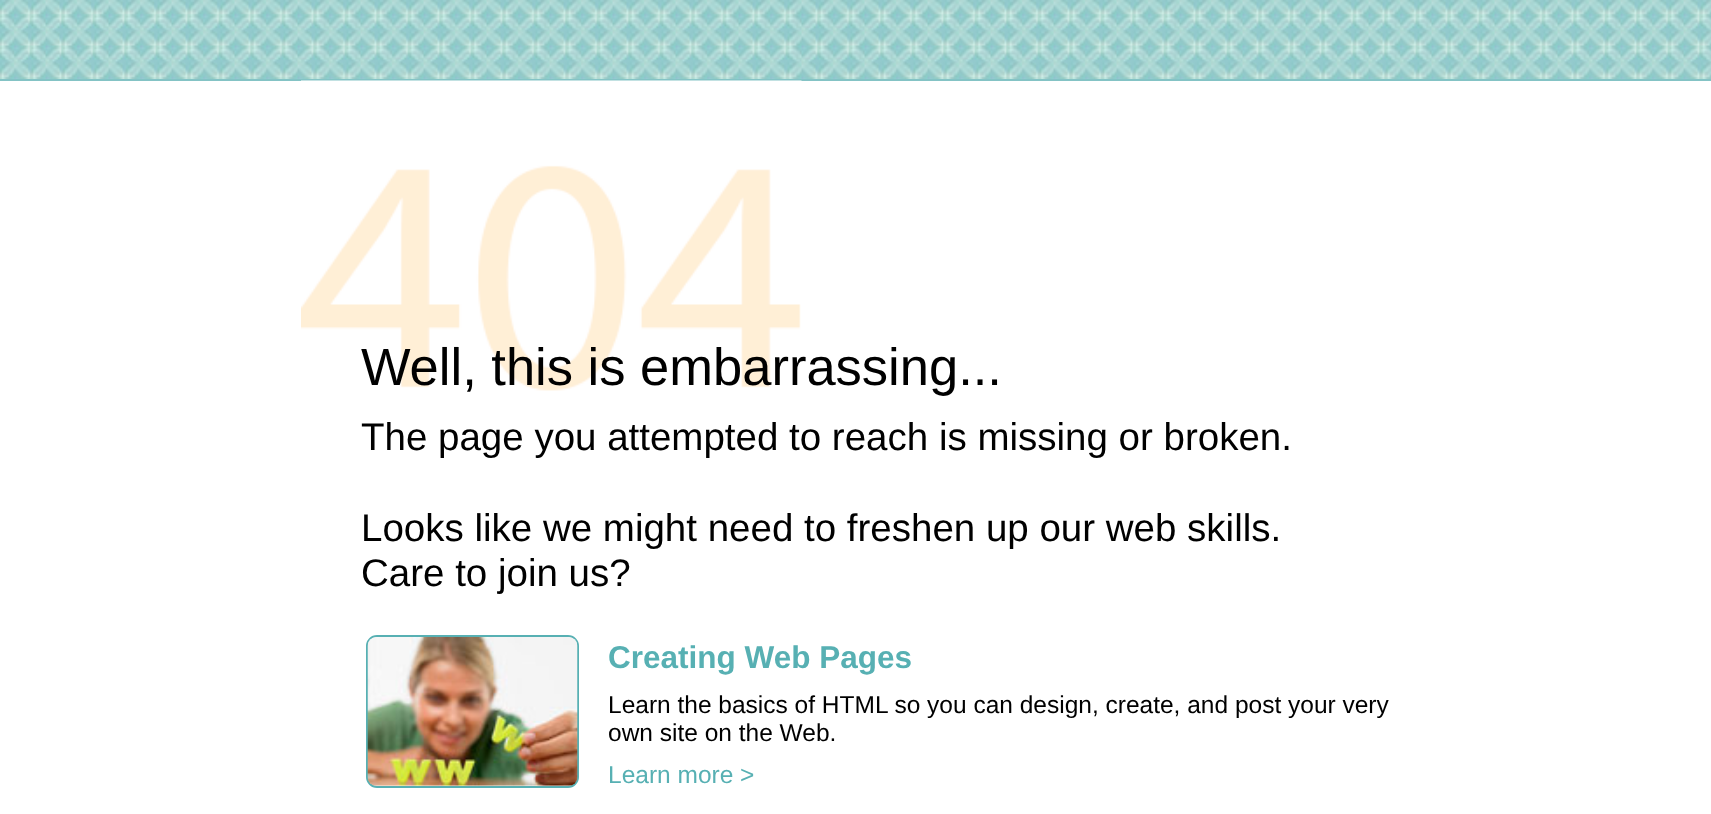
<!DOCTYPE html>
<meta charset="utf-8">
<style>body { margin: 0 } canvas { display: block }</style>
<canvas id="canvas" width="1711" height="814"></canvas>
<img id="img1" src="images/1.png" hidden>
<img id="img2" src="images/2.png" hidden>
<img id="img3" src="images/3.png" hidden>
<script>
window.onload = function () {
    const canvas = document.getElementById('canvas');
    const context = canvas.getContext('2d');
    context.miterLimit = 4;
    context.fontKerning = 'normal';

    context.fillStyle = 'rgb(255, 255, 255)';
    context.fillRect(0, 0, 1711, 814);
    context.drawImage(document.getElementById('img1'), 0, 0, 1711, 79);
    context.fillStyle = 'rgb(132, 195, 197)';
    context.fillRect(0, 79, 1711, 2);
    context.drawImage(document.getElementById('img2'), 301, 80, 501, 311);
    context.beginPath();
    context.roundRect(367, 636, 211, 151, 10);
    context.strokeStyle = 'rgb(87, 176, 179)';
    context.lineWidth = 2;
    context.stroke();
    context.drawImage(document.getElementById('img3'), 367, 637, 211, 149);
    context.font = '52.5px Liberation Sans';
    context.fillStyle = 'rgb(0, 0, 0)';
    context.fillText('Well, this is embarrassing...', 361, 385);
    context.font = '38.5px Liberation Sans';
    context.fillText('The page you attempted to reach is missing or broken.', 361, 450);
    context.fillText('Looks like we might need to freshen up our web skills.', 361, 541);
    context.fillText('Care to join us?', 361, 586);
    context.font = 'bold 31.5px Liberation Sans';
    context.fillStyle = 'rgb(87, 176, 179)';
    context.fillText('Creating Web Pages', 608, 668);
    context.font = '24.5px Liberation Sans';
    context.fillStyle = 'rgb(0, 0, 0)';
    context.fillText('Learn the basics of HTML so you can design, create, and post your very', 608, 713);
    context.fillText('own site on the Web.', 608, 741);
    context.fillStyle = 'rgb(87, 176, 179)';
    context.fillText('Learn more >', 608, 783);
};
</script>
